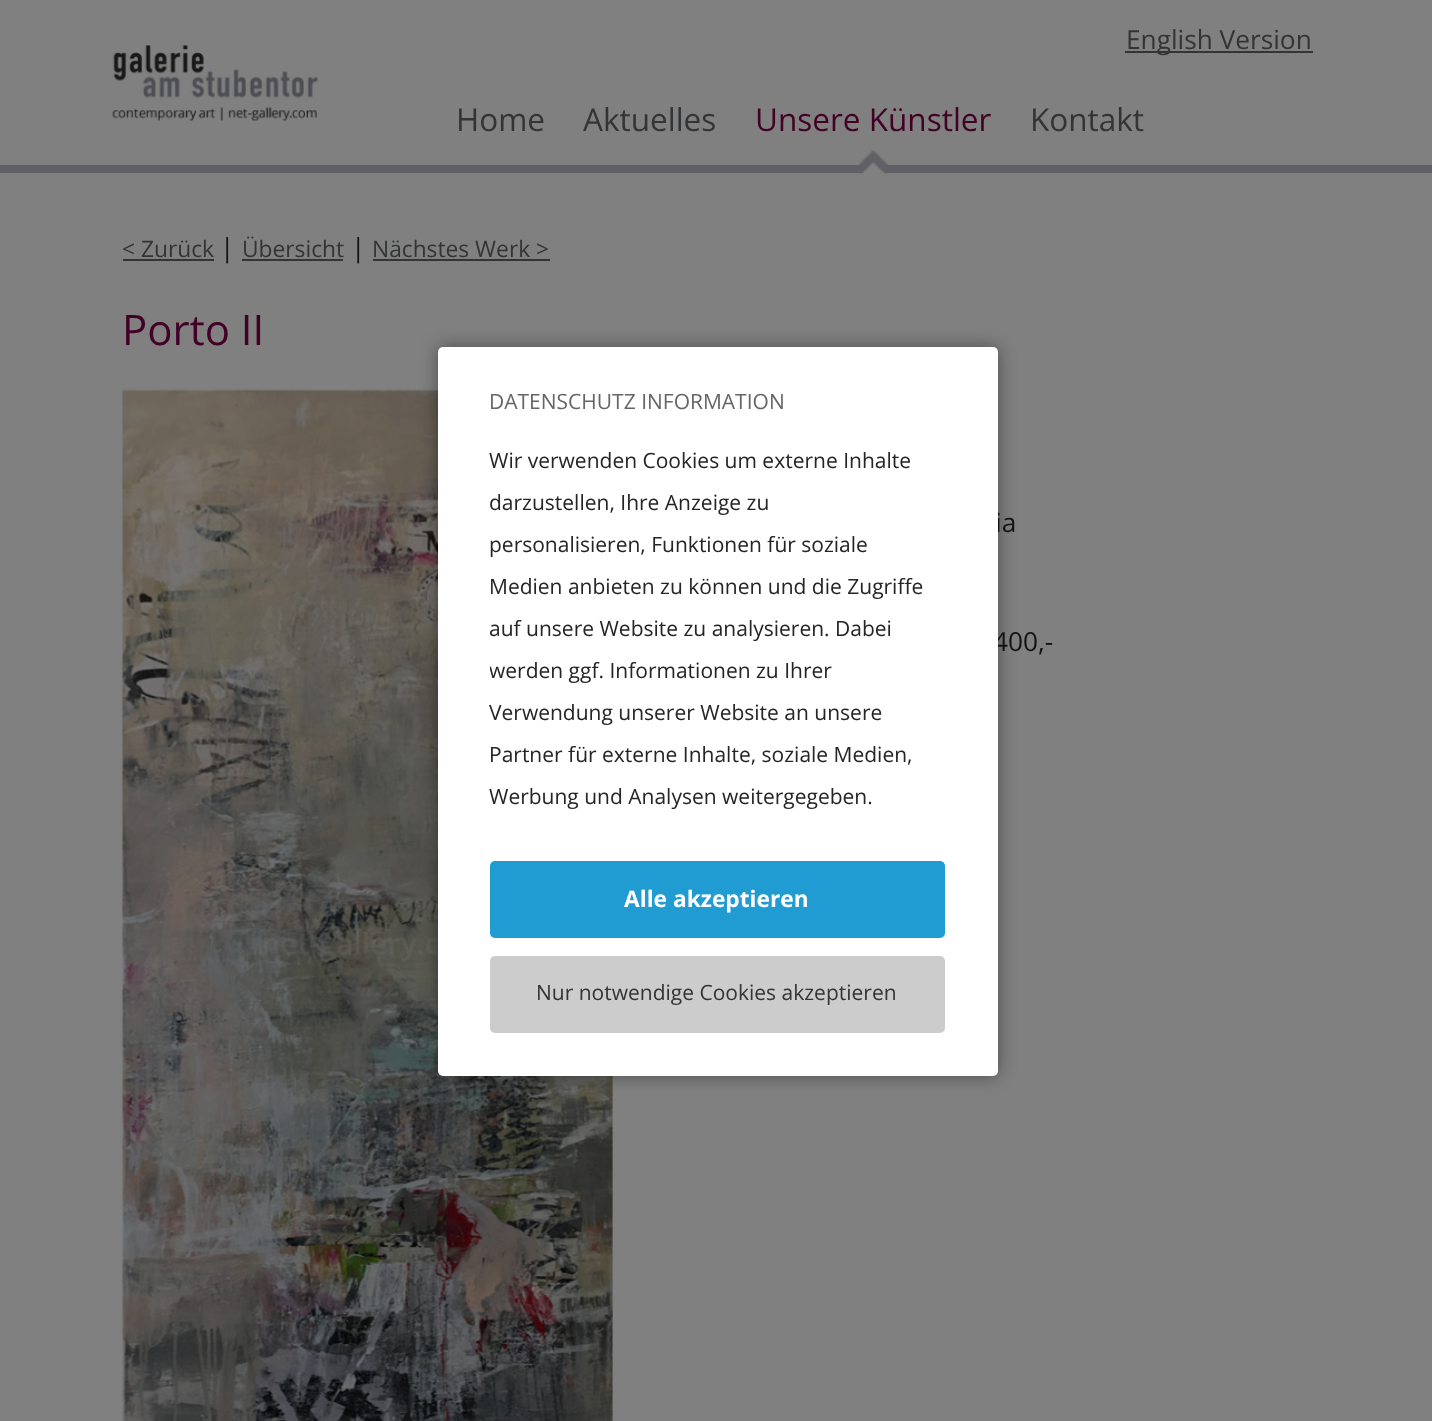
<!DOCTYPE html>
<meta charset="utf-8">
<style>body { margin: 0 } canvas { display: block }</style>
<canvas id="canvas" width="1432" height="1421"></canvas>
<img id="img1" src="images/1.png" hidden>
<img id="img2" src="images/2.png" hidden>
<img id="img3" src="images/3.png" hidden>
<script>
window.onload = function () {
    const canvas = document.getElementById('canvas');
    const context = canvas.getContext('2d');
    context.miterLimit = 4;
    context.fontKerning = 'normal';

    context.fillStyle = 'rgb(128, 128, 128)';
    context.fillRect(0, 0, 1432, 1421);
    context.drawImage(document.getElementById('img1'), 111, 45, 207, 76);
    context.fillStyle = 'rgb(97, 96, 102)';
    context.fillRect(0, 165, 1432, 8);
    context.drawImage(document.getElementById('img2'), 859, 150, 29, 24);
    context.fillStyle = 'rgb(51, 52, 54)';
    context.fillRect(1125, 51, 188, 2);
    context.fillRect(123, 259, 91, 2);
    context.fillRect(242, 259, 101, 2);
    context.fillRect(373, 259, 177, 2);
    context.drawImage(document.getElementById('img3'), 121, 389, 492, 1032);
    context.fillStyle = 'rgba(0, 0, 0, 0.4)';
    context.filter = 'blur(9px)';
    context.beginPath();
    context.roundRect(438, 347, 560, 729, 5);
    context.fill();
    context.filter = 'none';
    context.font = '31.5px Open Sans';
    context.fillStyle = 'rgb(51, 52, 54)';
    context.fillText('Home', 456, 131);
    context.fillText('Aktuelles', 583, 131);
    context.fillStyle = 'rgb(66, 0, 38)';
    context.fillText('Unsere Künstler', 755, 131);
    context.fillStyle = 'rgb(51, 52, 54)';
    context.fillText('Kontakt', 1030, 131);
    context.font = '26.25px Open Sans';
    context.fillText('English Version', 1126, 49);
    context.font = '22.75px Open Sans';
    context.fillText('< Zurück', 122, 257);
    context.font = '26.25px Open Sans';
    context.fillStyle = 'rgb(19, 19, 19)';
    context.fillText('|', 220, 257);
    context.font = '22.75px Open Sans';
    context.fillStyle = 'rgb(51, 52, 54)';
    context.fillText('Übersicht', 242, 257);
    context.font = '26.25px Open Sans';
    context.fillStyle = 'rgb(19, 19, 19)';
    context.fillText('|', 351, 257);
    context.font = '22.75px Open Sans';
    context.fillStyle = 'rgb(51, 52, 54)';
    context.fillText('Nächstes Werk >', 372, 257);
    context.font = '42px Open Sans';
    context.fillStyle = 'rgb(66, 0, 38)';
    context.fillText('Porto II', 122, 345);
    context.font = '26.25px Open Sans';
    context.fillStyle = 'rgb(19, 19, 19)';
    context.fillText('ia', 995, 532);
    context.fillText('400,-', 993, 651);
    context.fillStyle = 'rgb(255, 255, 255)';
    context.beginPath();
    context.roundRect(438, 347, 560, 729, 5);
    context.fill();
    context.font = '21px Open Sans';
    context.fillStyle = 'rgb(102, 102, 102)';
    context.fillText('DATENSCHUTZ INFORMATION', 489, 409);
    context.fillStyle = 'rgb(38, 37, 38)';
    context.fillText('Wir verwenden Cookies um externe Inhalte', 489, 468);
    context.fillText('darzustellen, Ihre Anzeige zu', 489, 510);
    context.fillText('personalisieren, Funktionen für soziale', 489, 552);
    context.fillText('Medien anbieten zu können und die Zugriffe', 489, 594);
    context.fillText('auf unsere Website zu analysieren. Dabei', 489, 636);
    context.save();
    context.beginPath();
    context.roundRect(490, 441, 455, 385, 5);
    context.clip();
    context.fillText('werden ggf. Informationen zu Ihrer', 489, 678);
    context.restore();
    context.fillText('Verwendung unserer Website an unsere', 489, 720);
    context.fillText('Partner für externe Inhalte, soziale Medien,', 489, 762);
    context.fillText('Werbung und Analysen weitergegeben.', 489, 804);
    context.fillStyle = 'rgb(32, 156, 210)';
    context.beginPath();
    context.roundRect(490, 861, 455, 77, 5);
    context.fill();
    context.font = 'bold 22.75px Open Sans';
    context.fillStyle = 'rgb(255, 255, 255)';
    context.fillText('Alle akzeptieren', 624, 907);
    context.fillStyle = 'rgb(204, 204, 204)';
    context.beginPath();
    context.roundRect(490, 956, 455, 77, 5);
    context.fill();
    context.font = '21px Open Sans';
    context.fillStyle = 'rgb(51, 52, 54)';
    context.fillText('Nur notwendige Cookies akzeptieren', 536, 1000);
};
</script>
